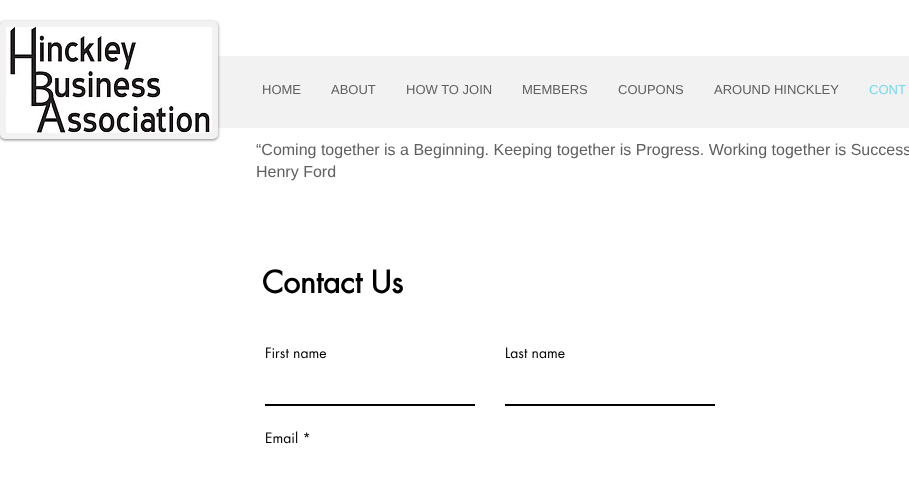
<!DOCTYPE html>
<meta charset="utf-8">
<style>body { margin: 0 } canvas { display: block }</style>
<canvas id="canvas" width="909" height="480"></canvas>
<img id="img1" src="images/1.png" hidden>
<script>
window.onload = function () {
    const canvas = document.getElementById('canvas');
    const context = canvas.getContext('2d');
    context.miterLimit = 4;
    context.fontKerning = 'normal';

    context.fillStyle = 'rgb(255, 255, 255)';
    context.fillRect(0, 0, 909, 480);
    context.fillStyle = 'rgb(242, 242, 242)';
    context.fillRect(218, 56, 691, 72);
    context.fillStyle = 'rgba(0, 0, 0, 0.5)';
    context.filter = 'blur(1.5px)';
    context.beginPath();
    context.roundRect(0, 22, 218, 118, 5);
    context.fill();
    context.filter = 'none';
    context.beginPath();
    context.roundRect(3, 24, 212, 112, 2);
    context.strokeStyle = 'rgb(242, 242, 242)';
    context.lineWidth = 6;
    context.stroke();
    context.drawImage(document.getElementById('img1'), 6, 27, 206, 106);
    context.fillStyle = 'rgb(0, 0, 0)';
    context.fillRect(265, 404, 210, 2);
    context.fillRect(505, 404, 210, 2);
    context.font = '13px Liberation Sans';
    context.fillStyle = 'rgb(96, 96, 96)';
    context.fillText('HOME', 262, 94);
    context.fillText('ABOUT', 331, 94);
    context.fillText('HOW TO JOIN', 406, 94);
    context.fillText('MEMBERS', 522, 94);
    context.fillText('COUPONS', 618, 94);
    context.fillText('AROUND HINCKLEY', 714, 94);
    context.fillStyle = 'rgb(119, 215, 239)';
    context.fillText('CONT', 869, 94);
    context.font = '16px Liberation Sans';
    context.fillStyle = 'rgb(96, 96, 96)';
    context.fillText('“Coming together is a Beginning. Keeping together is Progress. Working together is Success', 256, 155);
    context.fillText('Henry Ford', 256, 177);
    context.font = 'bold 30px futura';
    context.fillStyle = 'rgb(0, 0, 0)';
    context.fillText('Contact Us', 262, 293);
    context.font = '14px futura';
    context.fillText('First name', 265, 358);
    context.fillText('Last name', 505, 358);
    context.fillText('Email *', 265, 443);
};
</script>
